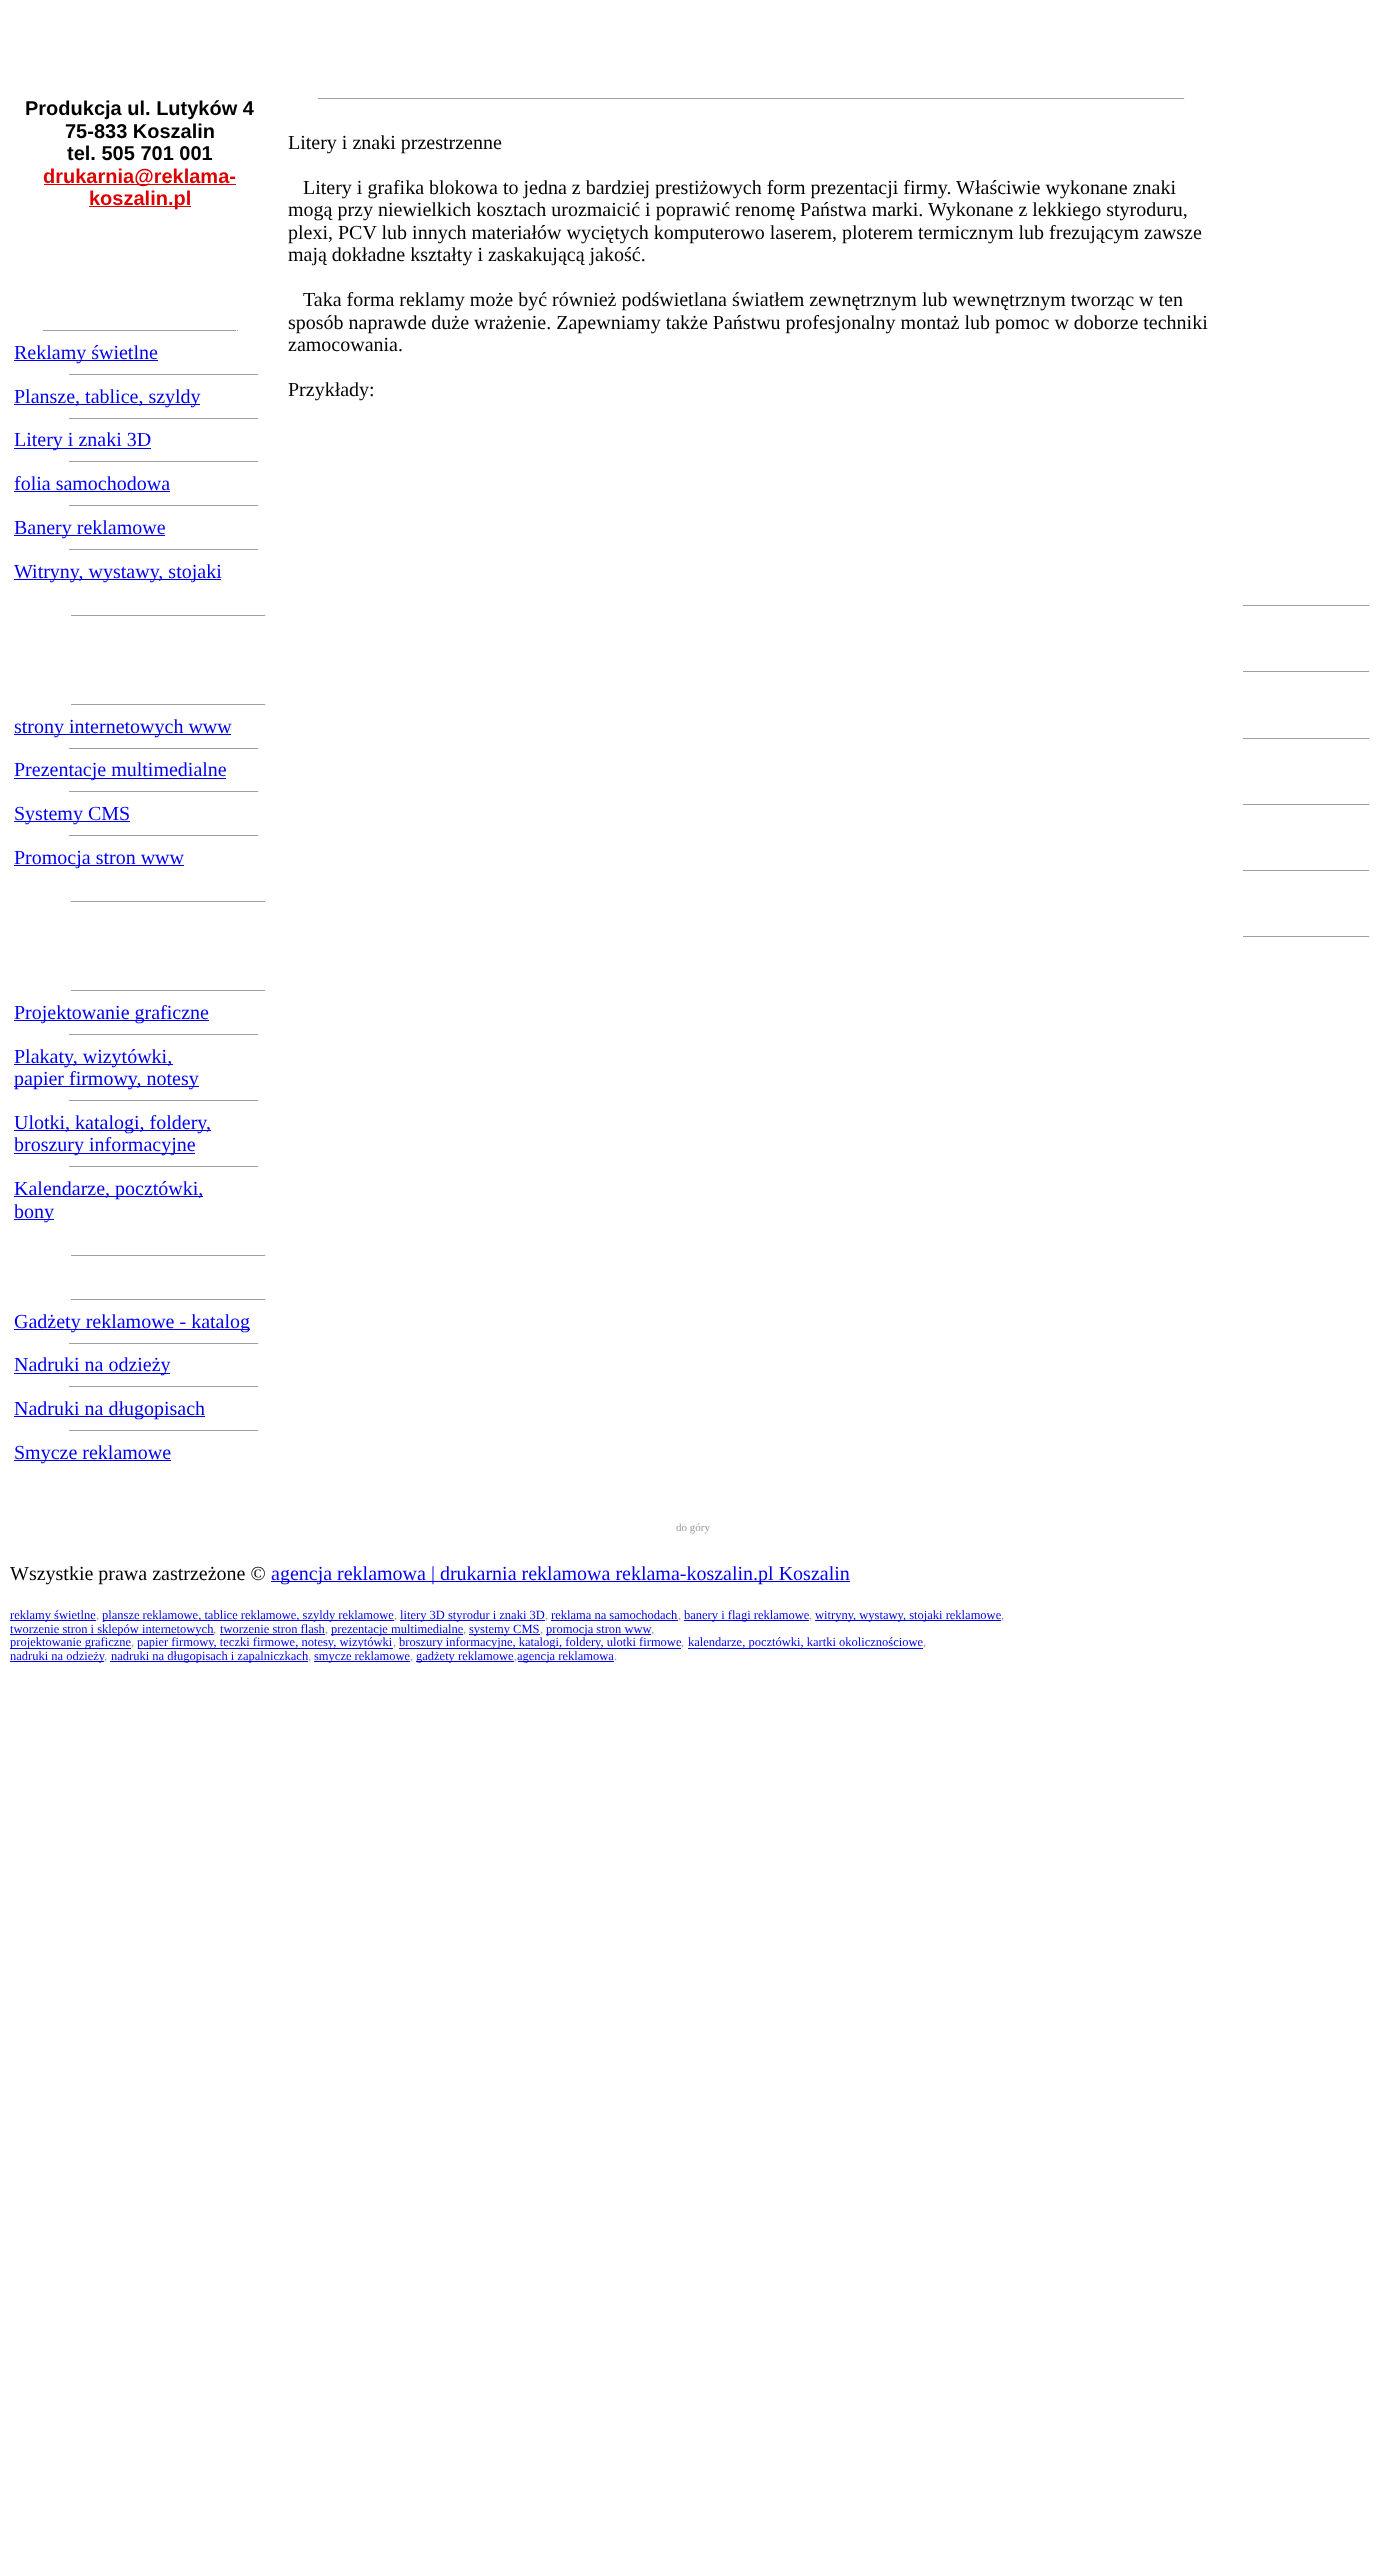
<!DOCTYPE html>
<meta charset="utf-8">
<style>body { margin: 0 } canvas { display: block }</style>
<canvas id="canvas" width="1389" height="2564"></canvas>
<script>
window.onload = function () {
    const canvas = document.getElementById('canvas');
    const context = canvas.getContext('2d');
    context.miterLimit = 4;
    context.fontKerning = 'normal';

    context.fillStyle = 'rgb(255, 255, 255)';
    context.fillRect(0, 0, 1389, 2564);
    context.fillStyle = 'rgb(221, 0, 0)';
    context.fillRect(44, 184, 192, 1);
    context.fillRect(89, 206, 102, 1);
    context.fillStyle = 'rgb(159, 159, 159)';
    context.fillRect(43, 330, 195, 1);
    context.fillStyle = 'rgb(238, 238, 238)';
    context.fillRect(236, 330, 1, 1);
    context.fillStyle = 'rgb(0, 0, 238)';
    context.fillRect(14, 360, 144, 1);
    context.fillStyle = 'rgb(159, 159, 159)';
    context.fillRect(69, 374, 190, 1);
    context.fillStyle = 'rgb(238, 238, 238)';
    context.fillRect(258, 374, 1, 1);
    context.fillStyle = 'rgb(0, 0, 238)';
    context.fillRect(14, 404, 186, 1);
    context.fillStyle = 'rgb(159, 159, 159)';
    context.fillRect(69, 418, 190, 1);
    context.fillStyle = 'rgb(238, 238, 238)';
    context.fillRect(258, 418, 1, 1);
    context.fillStyle = 'rgb(0, 0, 238)';
    context.fillRect(14, 448, 137, 1);
    context.fillStyle = 'rgb(159, 159, 159)';
    context.fillRect(69, 461, 190, 1);
    context.fillStyle = 'rgb(238, 238, 238)';
    context.fillRect(258, 461, 1, 1);
    context.fillStyle = 'rgb(0, 0, 238)';
    context.fillRect(14, 491, 156, 1);
    context.fillStyle = 'rgb(159, 159, 159)';
    context.fillRect(69, 505, 190, 1);
    context.fillStyle = 'rgb(238, 238, 238)';
    context.fillRect(258, 505, 1, 1);
    context.fillStyle = 'rgb(0, 0, 238)';
    context.fillRect(14, 535, 151, 1);
    context.fillStyle = 'rgb(159, 159, 159)';
    context.fillRect(69, 549, 190, 1);
    context.fillStyle = 'rgb(238, 238, 238)';
    context.fillRect(258, 549, 1, 1);
    context.fillStyle = 'rgb(0, 0, 238)';
    context.fillRect(14, 579, 207, 1);
    context.fillStyle = 'rgb(159, 159, 159)';
    context.fillRect(71, 615, 195, 1);
    context.fillStyle = 'rgb(238, 238, 238)';
    context.fillRect(265, 615, 1, 1);
    context.fillStyle = 'rgb(159, 159, 159)';
    context.fillRect(71, 704, 195, 1);
    context.fillStyle = 'rgb(238, 238, 238)';
    context.fillRect(265, 704, 1, 1);
    context.fillStyle = 'rgb(0, 0, 238)';
    context.fillRect(14, 734, 217, 1);
    context.fillStyle = 'rgb(159, 159, 159)';
    context.fillRect(69, 748, 190, 1);
    context.fillStyle = 'rgb(238, 238, 238)';
    context.fillRect(258, 748, 1, 1);
    context.fillStyle = 'rgb(0, 0, 238)';
    context.fillRect(14, 778, 212, 1);
    context.fillStyle = 'rgb(159, 159, 159)';
    context.fillRect(69, 791, 190, 1);
    context.fillStyle = 'rgb(238, 238, 238)';
    context.fillRect(258, 791, 1, 1);
    context.fillStyle = 'rgb(0, 0, 238)';
    context.fillRect(14, 821, 116, 1);
    context.fillStyle = 'rgb(159, 159, 159)';
    context.fillRect(69, 835, 190, 1);
    context.fillStyle = 'rgb(238, 238, 238)';
    context.fillRect(258, 835, 1, 1);
    context.fillStyle = 'rgb(0, 0, 238)';
    context.fillRect(14, 865, 170, 1);
    context.fillStyle = 'rgb(159, 159, 159)';
    context.fillRect(71, 901, 195, 1);
    context.fillStyle = 'rgb(238, 238, 238)';
    context.fillRect(265, 901, 1, 1);
    context.fillStyle = 'rgb(159, 159, 159)';
    context.fillRect(71, 990, 195, 1);
    context.fillStyle = 'rgb(238, 238, 238)';
    context.fillRect(265, 990, 1, 1);
    context.fillStyle = 'rgb(0, 0, 238)';
    context.fillRect(14, 1020, 195, 1);
    context.fillStyle = 'rgb(159, 159, 159)';
    context.fillRect(69, 1034, 190, 1);
    context.fillStyle = 'rgb(238, 238, 238)';
    context.fillRect(258, 1034, 1, 1);
    context.fillStyle = 'rgb(0, 0, 238)';
    context.fillRect(14, 1064, 159, 1);
    context.fillRect(14, 1086, 185, 1);
    context.fillStyle = 'rgb(159, 159, 159)';
    context.fillRect(69, 1100, 190, 1);
    context.fillStyle = 'rgb(238, 238, 238)';
    context.fillRect(258, 1100, 1, 1);
    context.fillStyle = 'rgb(0, 0, 238)';
    context.fillRect(14, 1130, 197, 1);
    context.fillRect(14, 1153, 181, 1);
    context.fillStyle = 'rgb(159, 159, 159)';
    context.fillRect(69, 1166, 190, 1);
    context.fillStyle = 'rgb(238, 238, 238)';
    context.fillRect(258, 1166, 1, 1);
    context.fillStyle = 'rgb(0, 0, 238)';
    context.fillRect(14, 1196, 189, 1);
    context.fillRect(14, 1219, 40, 1);
    context.fillStyle = 'rgb(159, 159, 159)';
    context.fillRect(71, 1255, 195, 1);
    context.fillStyle = 'rgb(238, 238, 238)';
    context.fillRect(265, 1255, 1, 1);
    context.fillStyle = 'rgb(159, 159, 159)';
    context.fillRect(71, 1299, 195, 1);
    context.fillStyle = 'rgb(238, 238, 238)';
    context.fillRect(265, 1299, 1, 1);
    context.fillStyle = 'rgb(0, 0, 238)';
    context.fillRect(14, 1329, 236, 1);
    context.fillStyle = 'rgb(159, 159, 159)';
    context.fillRect(69, 1343, 190, 1);
    context.fillStyle = 'rgb(238, 238, 238)';
    context.fillRect(258, 1343, 1, 1);
    context.fillStyle = 'rgb(0, 0, 238)';
    context.fillRect(14, 1373, 156, 1);
    context.fillStyle = 'rgb(159, 159, 159)';
    context.fillRect(69, 1386, 190, 1);
    context.fillStyle = 'rgb(238, 238, 238)';
    context.fillRect(258, 1386, 1, 1);
    context.fillStyle = 'rgb(0, 0, 238)';
    context.fillRect(14, 1416, 191, 1);
    context.fillStyle = 'rgb(159, 159, 159)';
    context.fillRect(69, 1430, 190, 1);
    context.fillStyle = 'rgb(238, 238, 238)';
    context.fillRect(258, 1430, 1, 1);
    context.fillStyle = 'rgb(0, 0, 238)';
    context.fillRect(14, 1460, 157, 1);
    context.fillStyle = 'rgb(159, 159, 159)';
    context.fillRect(318, 98, 867, 1);
    context.fillStyle = 'rgb(238, 238, 238)';
    context.fillRect(1184, 98, 1, 1);
    context.fillStyle = 'rgb(159, 159, 159)';
    context.fillRect(1243, 605, 127, 1);
    context.fillStyle = 'rgb(238, 238, 238)';
    context.fillRect(1369, 605, 1, 1);
    context.fillStyle = 'rgb(159, 159, 159)';
    context.fillRect(1243, 671, 127, 1);
    context.fillStyle = 'rgb(238, 238, 238)';
    context.fillRect(1369, 671, 1, 1);
    context.fillStyle = 'rgb(159, 159, 159)';
    context.fillRect(1243, 738, 127, 1);
    context.fillStyle = 'rgb(238, 238, 238)';
    context.fillRect(1369, 738, 1, 1);
    context.fillStyle = 'rgb(159, 159, 159)';
    context.fillRect(1243, 804, 127, 1);
    context.fillStyle = 'rgb(238, 238, 238)';
    context.fillRect(1369, 804, 1, 1);
    context.fillStyle = 'rgb(159, 159, 159)';
    context.fillRect(1243, 870, 127, 1);
    context.fillStyle = 'rgb(238, 238, 238)';
    context.fillRect(1369, 870, 1, 1);
    context.fillStyle = 'rgb(159, 159, 159)';
    context.fillRect(1243, 936, 127, 1);
    context.fillStyle = 'rgb(238, 238, 238)';
    context.fillRect(1369, 936, 1, 1);
    context.fillStyle = 'rgb(0, 0, 238)';
    context.fillRect(271, 1581, 579, 1);
    context.fillRect(10, 1620, 86, 1);
    context.fillRect(103, 1620, 291, 1);
    context.fillRect(400, 1620, 145, 1);
    context.fillRect(551, 1620, 127, 1);
    context.fillRect(684, 1620, 125, 1);
    context.fillRect(815, 1620, 186, 1);
    context.fillRect(10, 1634, 204, 1);
    context.fillRect(220, 1634, 105, 1);
    context.fillRect(331, 1634, 132, 1);
    context.fillRect(469, 1634, 71, 1);
    context.fillRect(546, 1634, 105, 1);
    context.fillRect(10, 1648, 121, 1);
    context.fillRect(138, 1648, 255, 1);
    context.fillRect(399, 1648, 282, 1);
    context.fillRect(688, 1648, 235, 1);
    context.fillRect(10, 1661, 94, 1);
    context.fillRect(110, 1661, 198, 1);
    context.fillRect(314, 1661, 96, 1);
    context.fillRect(416, 1661, 98, 1);
    context.fillRect(518, 1661, 96, 1);
    context.font = 'bold 20px Liberation Sans';
    context.fillStyle = 'rgb(0, 0, 0)';
    context.fillText('Produkcja ul. Lutyków 4', 25, 115);
    context.fillText('75-833 Koszalin', 65, 138);
    context.fillText('tel. 505 701 001', 67, 160);
    context.fillStyle = 'rgb(221, 0, 0)';
    context.fillText('drukarnia@reklama-', 43, 183);
    context.fillText('koszalin.pl', 89, 205);
    context.font = '20px Liberation Serif';
    context.fillStyle = 'rgb(0, 0, 238)';
    context.fillText('Reklamy świetlne', 14, 359);
    context.fillText('Plansze, tablice, szyldy', 14, 403);
    context.fillText('Litery i znaki 3D', 14, 446);
    context.fillText('folia samochodowa', 14, 490);
    context.fillText('Banery reklamowe', 14, 534);
    context.fillText('Witryny, wystawy, stojaki', 14, 578);
    context.fillText('strony internetowych www', 14, 733);
    context.fillText('Prezentacje multimedialne', 14, 776);
    context.fillText('Systemy CMS', 14, 820);
    context.fillText('Promocja stron www', 14, 864);
    context.fillText('Projektowanie graficzne', 14, 1019);
    context.fillText('Plakaty, wizytówki,', 14, 1063);
    context.fillText('papier firmowy, notesy', 14, 1085);
    context.fillText('Ulotki, katalogi, foldery,', 14, 1129);
    context.fillText('broszury informacyjne', 14, 1151);
    context.fillText('Kalendarze, pocztówki,', 14, 1195);
    context.fillText('bony', 14, 1218);
    context.fillText('Gadżety reklamowe - katalog', 14, 1328);
    context.fillText('Nadruki na odzieży', 14, 1371);
    context.fillText('Nadruki na długopisach', 14, 1415);
    context.fillText('Smycze reklamowe', 14, 1459);
    context.fillStyle = 'rgb(0, 0, 0)';
    context.fillText('Litery i znaki przestrzenne', 288, 149);
    context.fillText('Litery i grafika blokowa to jedna z bardziej prestiżowych form prezentacji firmy. Właściwie wykonane znaki', 303, 194);
    context.fillText('mogą przy niewielkich kosztach urozmaicić i poprawić renomę Państwa marki. Wykonane z lekkiego styroduru,', 288, 216);
    context.fillText('plexi, PCV lub innych materiałów wyciętych komputerowo laserem, ploterem termicznym lub frezującym zawsze', 288, 239);
    context.fillText('mają dokładne kształty i zaskakującą jakość.', 288, 261);
    context.fillText('Taka forma reklamy może być również podświetlana światłem zewnętrznym lub wewnętrznym tworząc w ten', 303, 306);
    context.fillText('sposób naprawde duże wrażenie. Zapewniamy także Państwu profesjonalny montaż lub pomoc w doborze techniki', 288, 329);
    context.fillText('zamocowania.', 288, 351);
    context.fillText('Przykłady:', 288, 396);
    context.font = '11px Liberation Serif';
    context.fillStyle = 'rgb(153, 153, 153)';
    context.fillText('do góry', 676, 1531);
    context.font = '20px Liberation Serif';
    context.fillStyle = 'rgb(0, 0, 0)';
    context.fillText('Wszystkie prawa zastrzeżone ©', 10, 1580);
    context.fillStyle = 'rgb(0, 0, 238)';
    context.fillText('agencja reklamowa | drukarnia reklamowa reklama-koszalin.pl Koszalin', 271, 1580);
    context.font = '12.5px Liberation Serif';
    context.fillText('reklamy świetlne', 10, 1619);
    context.fillStyle = 'rgb(153, 153, 153)';
    context.fillText(',', 96, 1619);
    context.fillStyle = 'rgb(0, 0, 238)';
    context.fillText('plansze reklamowe, tablice reklamowe, szyldy reklamowe', 102, 1619);
    context.fillStyle = 'rgb(153, 153, 153)';
    context.fillText(',', 394, 1619);
    context.fillStyle = 'rgb(0, 0, 238)';
    context.fillText('litery 3D styrodur i znaki 3D', 400, 1619);
    context.fillStyle = 'rgb(153, 153, 153)';
    context.fillText(',', 545, 1619);
    context.fillStyle = 'rgb(0, 0, 238)';
    context.fillText('reklama na samochodach', 551, 1619);
    context.fillStyle = 'rgb(153, 153, 153)';
    context.fillText(',', 678, 1619);
    context.fillStyle = 'rgb(0, 0, 238)';
    context.fillText('banery i flagi reklamowe', 684, 1619);
    context.fillStyle = 'rgb(153, 153, 153)';
    context.fillText(',', 809, 1619);
    context.fillStyle = 'rgb(0, 0, 238)';
    context.fillText('witryny, wystawy, stojaki reklamowe', 815, 1619);
    context.fillStyle = 'rgb(153, 153, 153)';
    context.fillText(',', 1001, 1619);
    context.fillStyle = 'rgb(0, 0, 238)';
    context.fillText('tworzenie stron i sklepów internetowych', 10, 1633);
    context.fillStyle = 'rgb(153, 153, 153)';
    context.fillText(',', 213, 1633);
    context.fillStyle = 'rgb(0, 0, 238)';
    context.fillText('tworzenie stron flash', 220, 1633);
    context.fillStyle = 'rgb(153, 153, 153)';
    context.fillText(',', 325, 1633);
    context.fillStyle = 'rgb(0, 0, 238)';
    context.fillText('prezentacje multimedialne', 331, 1633);
    context.fillStyle = 'rgb(153, 153, 153)';
    context.fillText(',', 463, 1633);
    context.fillStyle = 'rgb(0, 0, 238)';
    context.fillText('systemy CMS', 469, 1633);
    context.fillStyle = 'rgb(153, 153, 153)';
    context.fillText(',', 540, 1633);
    context.fillStyle = 'rgb(0, 0, 238)';
    context.fillText('promocja stron www', 546, 1633);
    context.fillStyle = 'rgb(153, 153, 153)';
    context.fillText(',', 651, 1633);
    context.fillStyle = 'rgb(0, 0, 238)';
    context.fillText('projektowanie graficzne', 10, 1646);
    context.fillStyle = 'rgb(153, 153, 153)';
    context.fillText(',', 131, 1646);
    context.fillStyle = 'rgb(0, 0, 238)';
    context.fillText('papier firmowy, teczki firmowe, notesy, wizytówki', 137, 1646);
    context.fillStyle = 'rgb(153, 153, 153)';
    context.fillText(',', 393, 1646);
    context.fillStyle = 'rgb(0, 0, 238)';
    context.fillText('broszury informacyjne, katalogi, foldery, ulotki firmowe', 399, 1646);
    context.fillStyle = 'rgb(153, 153, 153)';
    context.fillText(',', 681, 1646);
    context.fillStyle = 'rgb(0, 0, 238)';
    context.fillText('kalendarze, pocztówki, kartki okolicznościowe', 688, 1646);
    context.fillStyle = 'rgb(153, 153, 153)';
    context.fillText(',', 923, 1646);
    context.fillStyle = 'rgb(0, 0, 238)';
    context.fillText('nadruki na odzieży', 10, 1660);
    context.fillStyle = 'rgb(153, 153, 153)';
    context.fillText(',', 104, 1660);
    context.fillStyle = 'rgb(0, 0, 238)';
    context.fillText('nadruki na długopisach i zapalniczkach', 111, 1660);
    context.fillStyle = 'rgb(153, 153, 153)';
    context.fillText(',', 308, 1660);
    context.fillStyle = 'rgb(0, 0, 238)';
    context.fillText('smycze reklamowe', 314, 1660);
    context.fillStyle = 'rgb(153, 153, 153)';
    context.fillText(',', 410, 1660);
    context.fillStyle = 'rgb(0, 0, 238)';
    context.fillText('gadżety reklamowe', 416, 1660);
    context.fillStyle = 'rgb(153, 153, 153)';
    context.fillText(',', 514, 1660);
    context.fillStyle = 'rgb(0, 0, 238)';
    context.fillText('agencja reklamowa', 517, 1660);
    context.fillStyle = 'rgb(153, 153, 153)';
    context.fillText('.', 614, 1660);
};
</script>
